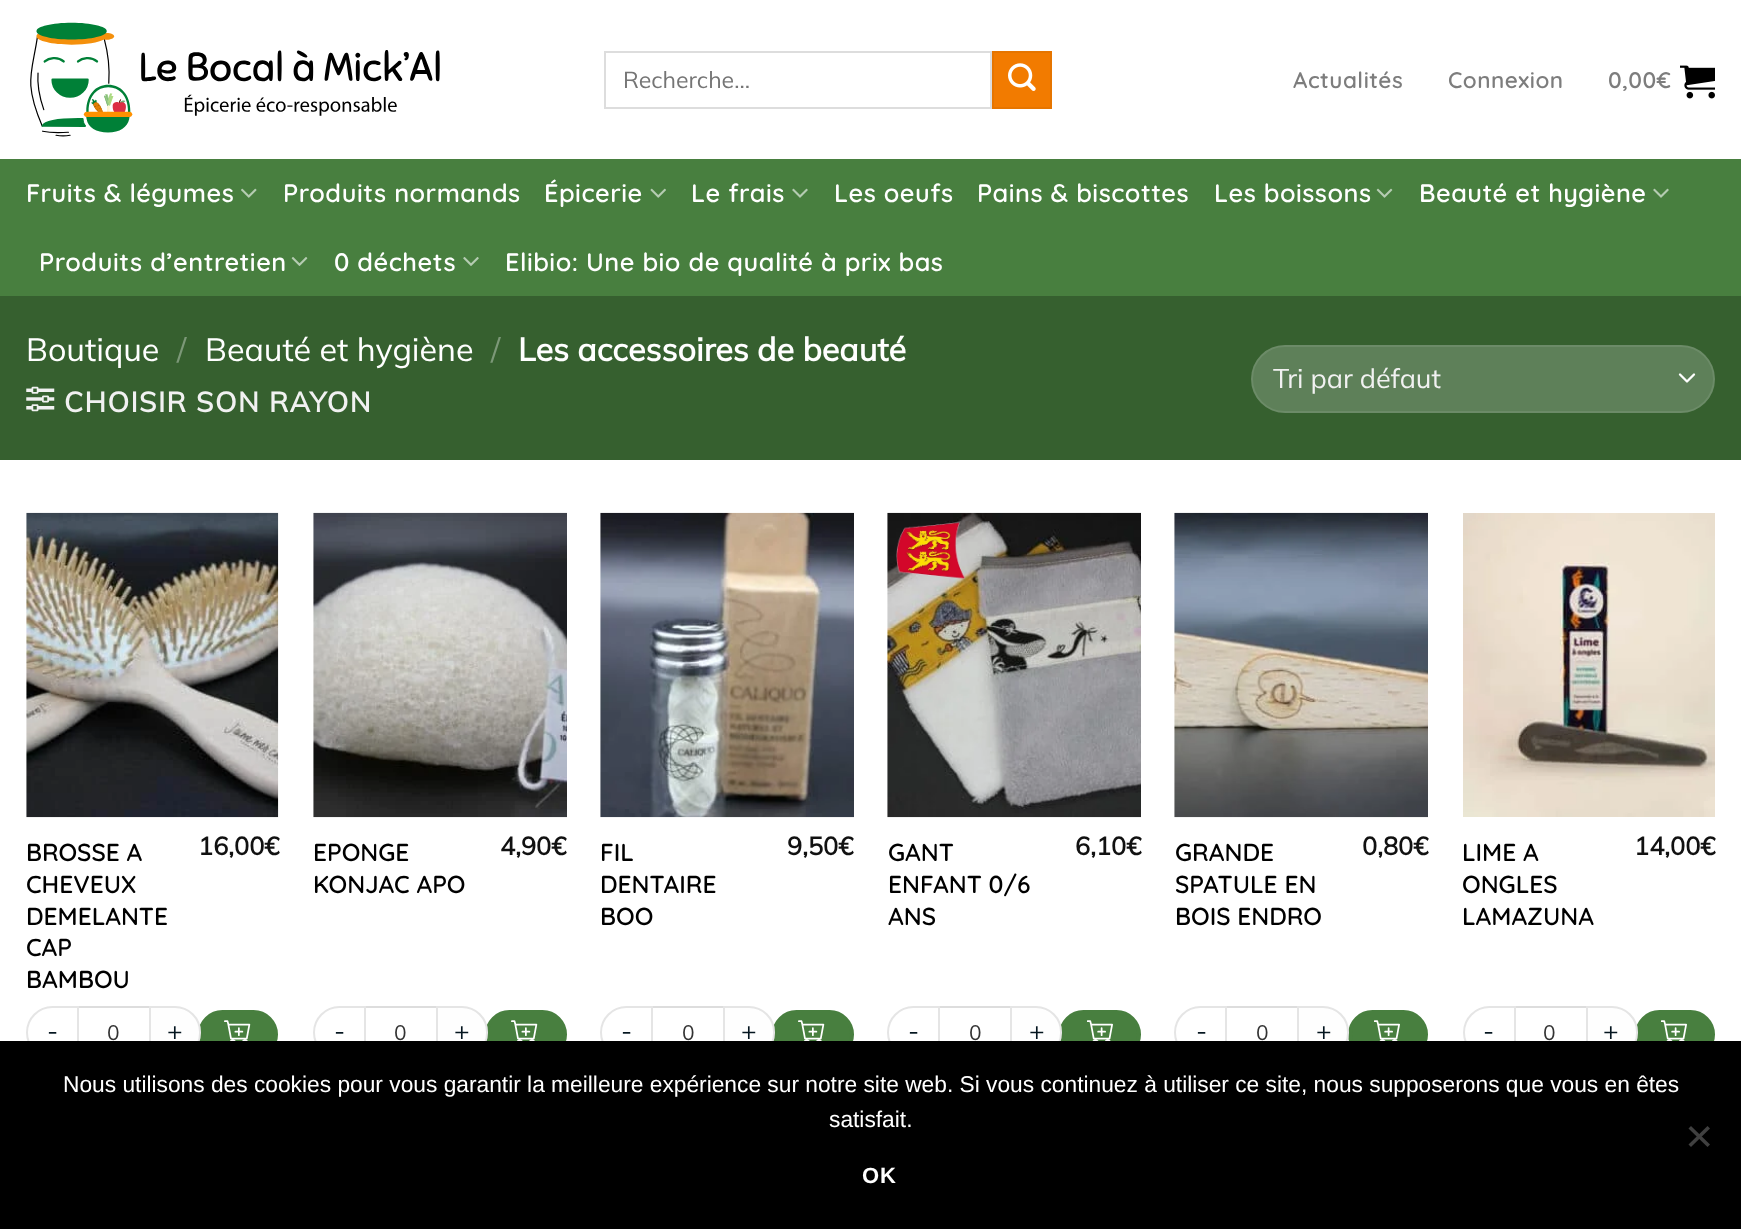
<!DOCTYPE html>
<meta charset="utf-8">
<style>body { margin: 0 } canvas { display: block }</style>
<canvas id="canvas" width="1741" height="1229"></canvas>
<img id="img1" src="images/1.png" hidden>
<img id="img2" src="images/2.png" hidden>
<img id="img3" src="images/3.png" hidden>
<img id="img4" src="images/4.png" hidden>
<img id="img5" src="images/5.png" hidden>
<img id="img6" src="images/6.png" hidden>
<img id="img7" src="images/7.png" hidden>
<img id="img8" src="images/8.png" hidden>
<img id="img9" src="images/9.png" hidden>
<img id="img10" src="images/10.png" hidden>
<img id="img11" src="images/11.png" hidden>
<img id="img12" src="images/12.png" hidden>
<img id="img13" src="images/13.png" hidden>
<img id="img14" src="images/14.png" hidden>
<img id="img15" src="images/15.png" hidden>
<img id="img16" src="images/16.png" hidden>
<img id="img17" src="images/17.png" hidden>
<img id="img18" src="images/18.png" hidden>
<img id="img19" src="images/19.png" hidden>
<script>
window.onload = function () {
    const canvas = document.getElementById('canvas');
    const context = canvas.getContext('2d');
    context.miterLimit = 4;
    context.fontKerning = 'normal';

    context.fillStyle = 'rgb(255, 255, 255)';
    context.fillRect(0, 0, 1741, 1229);
    context.drawImage(document.getElementById('img1'), 30, 22, 410, 115);
    context.strokeStyle = 'rgb(221, 221, 221)';
    context.lineWidth = 2;
    context.strokeRect(605, 52, 386, 56);
    context.fillStyle = 'rgb(242, 123, 0)';
    context.beginPath();
    context.rect(993, 52, 58, 56);
    context.fill();
    context.strokeStyle = 'rgb(230, 117, 0)';
    context.stroke();
    context.drawImage(document.getElementById('img2'), 1008, 63, 28, 28);
    context.drawImage(document.getElementById('img3'), 1680, 65, 35, 34);
    context.fillStyle = 'rgb(72, 127, 63)';
    context.fillRect(0, 159, 1741, 137);
    context.drawImage(document.getElementById('img4'), 241, 188, 16, 10);
    context.drawImage(document.getElementById('img5'), 650, 188, 16, 10);
    context.drawImage(document.getElementById('img6'), 792, 188, 16, 10);
    context.drawImage(document.getElementById('img7'), 1376, 188, 17, 10);
    context.drawImage(document.getElementById('img6'), 1653, 188, 16, 10);
    context.drawImage(document.getElementById('img8'), 291, 257, 17, 9);
    context.drawImage(document.getElementById('img9'), 463, 257, 16, 9);
    context.fillStyle = 'rgb(54, 96, 47)';
    context.fillRect(0, 296, 1741, 164);
    context.drawImage(document.getElementById('img10'), 26, 386, 29, 26);
    context.fillStyle = 'rgb(94, 128, 89)';
    context.beginPath();
    context.roundRect(1251, 345, 464, 68, 34);
    context.fill();
    context.beginPath();
    context.moveTo(1680, 374.5);
    context.lineTo(1687, 381.5);
    context.lineTo(1694, 374.5);
    context.strokeStyle = 'rgb(255, 255, 255)';
    context.lineWidth = 2.3;
    context.lineCap = 'round';
    context.lineJoin = 'round';
    context.stroke();
    context.beginPath();
    context.roundRect(1252, 346, 462, 66, 33);
    context.strokeStyle = 'rgba(255, 255, 255, 0.09)';
    context.lineWidth = 2;
    context.lineJoin = 'miter';
    context.stroke();
    context.drawImage(document.getElementById('img11'), 26, 512, 253, 306);
    context.fillStyle = 'rgb(72, 127, 63)';
    context.beginPath();
    context.roundRect(200, 1012, 76, 45, 22.5);
    context.fill();
    context.strokeStyle = 'rgb(72, 127, 63)';
    context.lineWidth = 4;
    context.stroke();
    context.drawImage(document.getElementById('img12'), 224, 1020, 27, 21);
    context.beginPath();
    context.roundRect(27, 1007, 51, 51, [25.5, 0, 0, 25.5]);
    context.strokeStyle = 'rgb(229, 229, 229)';
    context.lineWidth = 2;
    context.stroke();
    context.fillStyle = 'rgb(221, 221, 221)';
    context.fillRect(79, 1006, 70, 2);
    context.fillStyle = 'rgb(254, 254, 254)';
    context.beginPath();
    context.roundRect(150, 1007, 50, 51, [0, 25, 25, 0]);
    context.fill();
    context.stroke();
    context.drawImage(document.getElementById('img13'), 313, 512, 254, 306);
    context.fillStyle = 'rgb(72, 127, 63)';
    context.beginPath();
    context.roundRect(487, 1012, 78, 45, 22.5);
    context.fill();
    context.strokeStyle = 'rgb(72, 127, 63)';
    context.lineWidth = 4;
    context.stroke();
    context.drawImage(document.getElementById('img12'), 511, 1020, 27, 21);
    context.beginPath();
    context.roundRect(314, 1007, 51, 51, [25.5, 0, 0, 25.5]);
    context.strokeStyle = 'rgb(229, 229, 229)';
    context.lineWidth = 2;
    context.stroke();
    context.fillStyle = 'rgb(221, 221, 221)';
    context.fillRect(366, 1006, 70, 2);
    context.fillStyle = 'rgb(254, 254, 254)';
    context.beginPath();
    context.roundRect(437, 1007, 50, 51, [0, 25, 25, 0]);
    context.fill();
    context.stroke();
    context.drawImage(document.getElementById('img14'), 600, 512, 254, 306);
    context.fillStyle = 'rgb(72, 127, 63)';
    context.beginPath();
    context.roundRect(774, 1012, 78, 45, 22.5);
    context.fill();
    context.strokeStyle = 'rgb(72, 127, 63)';
    context.lineWidth = 4;
    context.stroke();
    context.drawImage(document.getElementById('img12'), 798, 1020, 27, 21);
    context.beginPath();
    context.roundRect(601, 1007, 51, 51, [25.5, 0, 0, 25.5]);
    context.strokeStyle = 'rgb(229, 229, 229)';
    context.lineWidth = 2;
    context.stroke();
    context.fillStyle = 'rgb(221, 221, 221)';
    context.fillRect(653, 1006, 70, 2);
    context.fillStyle = 'rgb(254, 254, 254)';
    context.beginPath();
    context.roundRect(724, 1007, 50, 51, [0, 25, 25, 0]);
    context.fill();
    context.stroke();
    context.drawImage(document.getElementById('img15'), 887, 512, 254, 306);
    context.drawImage(document.getElementById('img16'), 896, 522, 69, 57);
    context.fillStyle = 'rgb(72, 127, 63)';
    context.beginPath();
    context.roundRect(1061, 1012, 78, 45, 22.5);
    context.fill();
    context.strokeStyle = 'rgb(72, 127, 63)';
    context.lineWidth = 4;
    context.stroke();
    context.drawImage(document.getElementById('img17'), 1087, 1020, 26, 21);
    context.beginPath();
    context.roundRect(888, 1007, 51, 51, [25.5, 0, 0, 25.5]);
    context.strokeStyle = 'rgb(229, 229, 229)';
    context.lineWidth = 2;
    context.stroke();
    context.fillStyle = 'rgb(221, 221, 221)';
    context.fillRect(940, 1006, 70, 2);
    context.fillStyle = 'rgb(254, 254, 254)';
    context.beginPath();
    context.roundRect(1011, 1007, 50, 51, [0, 25, 25, 0]);
    context.fill();
    context.stroke();
    context.drawImage(document.getElementById('img18'), 1174, 512, 254, 306);
    context.fillStyle = 'rgb(72, 127, 63)';
    context.beginPath();
    context.roundRect(1350, 1012, 76, 45, 22.5);
    context.fill();
    context.strokeStyle = 'rgb(72, 127, 63)';
    context.lineWidth = 4;
    context.stroke();
    context.drawImage(document.getElementById('img17'), 1374, 1020, 26, 21);
    context.beginPath();
    context.roundRect(1175, 1007, 51, 51, [25.5, 0, 0, 25.5]);
    context.strokeStyle = 'rgb(229, 229, 229)';
    context.lineWidth = 2;
    context.stroke();
    context.fillStyle = 'rgb(221, 221, 221)';
    context.fillRect(1227, 1006, 70, 2);
    context.fillStyle = 'rgb(254, 254, 254)';
    context.beginPath();
    context.roundRect(1298, 1007, 50, 51, [0, 25, 25, 0]);
    context.fill();
    context.stroke();
    context.drawImage(document.getElementById('img19'), 1463, 513, 252, 304);
    context.fillStyle = 'rgb(72, 127, 63)';
    context.beginPath();
    context.roundRect(1637, 1012, 76, 45, 22.5);
    context.fill();
    context.strokeStyle = 'rgb(72, 127, 63)';
    context.lineWidth = 4;
    context.stroke();
    context.drawImage(document.getElementById('img17'), 1661, 1020, 26, 21);
    context.beginPath();
    context.roundRect(1464, 1007, 51, 51, [25.5, 0, 0, 25.5]);
    context.strokeStyle = 'rgb(229, 229, 229)';
    context.lineWidth = 2;
    context.stroke();
    context.fillStyle = 'rgb(221, 221, 221)';
    context.fillRect(1516, 1006, 70, 2);
    context.fillStyle = 'rgb(254, 254, 254)';
    context.beginPath();
    context.roundRect(1587, 1007, 50, 51, [0, 25, 25, 0]);
    context.fill();
    context.stroke();
    context.fillStyle = 'rgb(0, 0, 0)';
    context.fillRect(0, 1041, 1741, 188);
    context.fillStyle = 'rgb(64, 64, 64)';
    context.beginPath();
    context.moveTo(1707.5, 1126);
    context.lineTo(1710, 1128.5);
    context.lineTo(1691, 1147);
    context.lineTo(1688.5, 1144.5);
    context.closePath();
    context.fill();
    context.beginPath();
    context.moveTo(1688.5, 1128.5);
    context.lineTo(1691, 1126);
    context.lineTo(1710, 1144.5);
    context.lineTo(1707.5, 1147);
    context.closePath();
    context.fill();
    context.font = '200 23px Mulish';
    context.fillStyle = 'rgb(117, 117, 117)';
    context.fillText('Recherche…', 623, 88);
    context.letterSpacing = '0.5px';
    context.font = '600 22.5px Quicksand';
    context.fillStyle = 'rgb(125, 125, 125)';
    context.fillText('Actualités', 1293, 88);
    context.fillText('Connexion', 1448, 88);
    context.fillText('0,00€', 1608, 88);
    context.font = '600 25.25px Quicksand';
    context.fillStyle = 'rgb(255, 255, 255)';
    context.fillText('Fruits & légumes', 26, 202);
    context.fillText('Produits normands', 283, 202);
    context.fillText('Épicerie', 544, 202);
    context.fillText('Le frais', 691, 202);
    context.fillText('Les oeufs', 834, 202);
    context.fillText('Pains & biscottes', 977, 202);
    context.fillText('Les boissons', 1214, 202);
    context.fillText('Beauté et hygiène', 1419, 202);
    context.fillText('Produits d’entretien', 39, 271);
    context.fillText('0 déchets', 334, 271);
    context.fillText('Elibio: Une bio de qualité à prix bas', 505, 271);
    context.letterSpacing = '0px';
    context.font = '200 32.25px Mulish';
    context.fillText('Boutique', 26, 361);
    context.fillStyle = 'rgb(124, 152, 120)';
    context.fillText('/', 177, 361);
    context.fillStyle = 'rgb(255, 255, 255)';
    context.fillText('Beauté et hygiène', 205, 361);
    context.fillStyle = 'rgb(124, 152, 120)';
    context.fillText('/', 491, 361);
    context.font = 'bold 32.25px Mulish';
    context.fillStyle = 'rgb(255, 255, 255)';
    context.fillText('Les accessoires de beauté', 518, 361);
    context.letterSpacing = '1.4px';
    context.font = 'bold 28px Mulish';
    context.fillStyle = 'rgb(241, 241, 241)';
    context.fillText('CHOISIR SON RAYON', 64, 412);
    context.letterSpacing = '0px';
    context.font = '200 27px Mulish';
    context.fillText('Tri par défaut', 1273, 388);
    context.font = '600 24.5px Quicksand';
    context.fillStyle = 'rgb(0, 0, 0)';
    context.fillText('BROSSE A', 26, 861);
    context.fillText('CHEVEUX', 26, 893);
    context.fillText('DEMELANTE', 26, 925);
    context.fillText('CAP', 26, 956);
    context.fillText('BAMBOU', 26, 988);
    context.font = 'bold 25.25px Mulish';
    context.fillStyle = 'rgb(17, 17, 17)';
    context.fillText('16,00€', 198, 855);
    context.font = '200 26px Mulish';
    context.fillStyle = 'rgb(4, 21, 31)';
    context.fillText('-', 47, 1040);
    context.font = '200 21px Mulish';
    context.fillStyle = 'rgb(51, 51, 51)';
    context.fillText('0', 107, 1040);
    context.font = '200 26px Mulish';
    context.fillStyle = 'rgb(4, 21, 31)';
    context.fillText('+', 167, 1040);
    context.font = '600 24.5px Quicksand';
    context.fillStyle = 'rgb(0, 0, 0)';
    context.fillText('EPONGE', 313, 861);
    context.fillText('KONJAC APO', 313, 893);
    context.font = 'bold 25.25px Mulish';
    context.fillStyle = 'rgb(17, 17, 17)';
    context.fillText('4,90€', 500, 855);
    context.font = '200 26px Mulish';
    context.fillStyle = 'rgb(4, 21, 31)';
    context.fillText('-', 334, 1040);
    context.font = '200 21px Mulish';
    context.fillStyle = 'rgb(51, 51, 51)';
    context.fillText('0', 394, 1040);
    context.font = '200 26px Mulish';
    context.fillStyle = 'rgb(4, 21, 31)';
    context.fillText('+', 454, 1040);
    context.font = '600 24.5px Quicksand';
    context.fillStyle = 'rgb(0, 0, 0)';
    context.fillText('FIL', 600, 861);
    context.fillText('DENTAIRE', 600, 893);
    context.fillText('BOO', 600, 925);
    context.font = 'bold 25.25px Mulish';
    context.fillStyle = 'rgb(17, 17, 17)';
    context.fillText('9,50€', 787, 855);
    context.font = '200 26px Mulish';
    context.fillStyle = 'rgb(4, 21, 31)';
    context.fillText('-', 621, 1040);
    context.font = '200 21px Mulish';
    context.fillStyle = 'rgb(51, 51, 51)';
    context.fillText('0', 682, 1040);
    context.font = '200 26px Mulish';
    context.fillStyle = 'rgb(4, 21, 31)';
    context.fillText('+', 741, 1040);
    context.font = '600 24.5px Quicksand';
    context.fillStyle = 'rgb(0, 0, 0)';
    context.fillText('GANT', 888, 861);
    context.fillText('ENFANT 0/6', 888, 893);
    context.fillText('ANS', 888, 925);
    context.font = 'bold 25.25px Mulish';
    context.fillStyle = 'rgb(17, 17, 17)';
    context.fillText('6,10€', 1075, 855);
    context.font = '200 26px Mulish';
    context.fillStyle = 'rgb(4, 21, 31)';
    context.fillText('-', 908, 1040);
    context.font = '200 21px Mulish';
    context.fillStyle = 'rgb(51, 51, 51)';
    context.fillText('0', 969, 1040);
    context.font = '200 26px Mulish';
    context.fillStyle = 'rgb(4, 21, 31)';
    context.fillText('+', 1029, 1040);
    context.font = '600 24.5px Quicksand';
    context.fillStyle = 'rgb(0, 0, 0)';
    context.fillText('GRANDE', 1175, 861);
    context.fillText('SPATULE EN', 1175, 893);
    context.fillText('BOIS ENDRO', 1175, 925);
    context.font = 'bold 25.25px Mulish';
    context.fillStyle = 'rgb(17, 17, 17)';
    context.fillText('0,80€', 1362, 855);
    context.font = '200 26px Mulish';
    context.fillStyle = 'rgb(4, 21, 31)';
    context.fillText('-', 1196, 1040);
    context.font = '200 21px Mulish';
    context.fillStyle = 'rgb(51, 51, 51)';
    context.fillText('0', 1256, 1040);
    context.font = '200 26px Mulish';
    context.fillStyle = 'rgb(4, 21, 31)';
    context.fillText('+', 1316, 1040);
    context.font = '600 24.5px Quicksand';
    context.fillStyle = 'rgb(0, 0, 0)';
    context.fillText('LIME A', 1462, 861);
    context.fillText('ONGLES', 1462, 893);
    context.fillText('LAMAZUNA', 1462, 925);
    context.font = 'bold 25.25px Mulish';
    context.fillStyle = 'rgb(17, 17, 17)';
    context.fillText('14,00€', 1634, 855);
    context.font = '200 26px Mulish';
    context.fillStyle = 'rgb(4, 21, 31)';
    context.fillText('-', 1483, 1040);
    context.font = '200 21px Mulish';
    context.fillStyle = 'rgb(51, 51, 51)';
    context.fillText('0', 1543, 1040);
    context.font = '200 26px Mulish';
    context.fillStyle = 'rgb(4, 21, 31)';
    context.fillText('+', 1603, 1040);
    context.font = '22.75px Liberation Sans';
    context.fillStyle = 'rgb(255, 255, 255)';
    context.fillText('Nous utilisons des cookies pour vous garantir la meilleure expérience sur notre site web. Si vous continuez à utiliser ce site, nous supposerons que vous en êtes', 63, 1092);
    context.fillText('satisfait.', 829, 1127);
    context.letterSpacing = '1px';
    context.font = 'bold 22px Liberation Sans';
    context.fillText('OK', 862, 1183);
};
</script>
